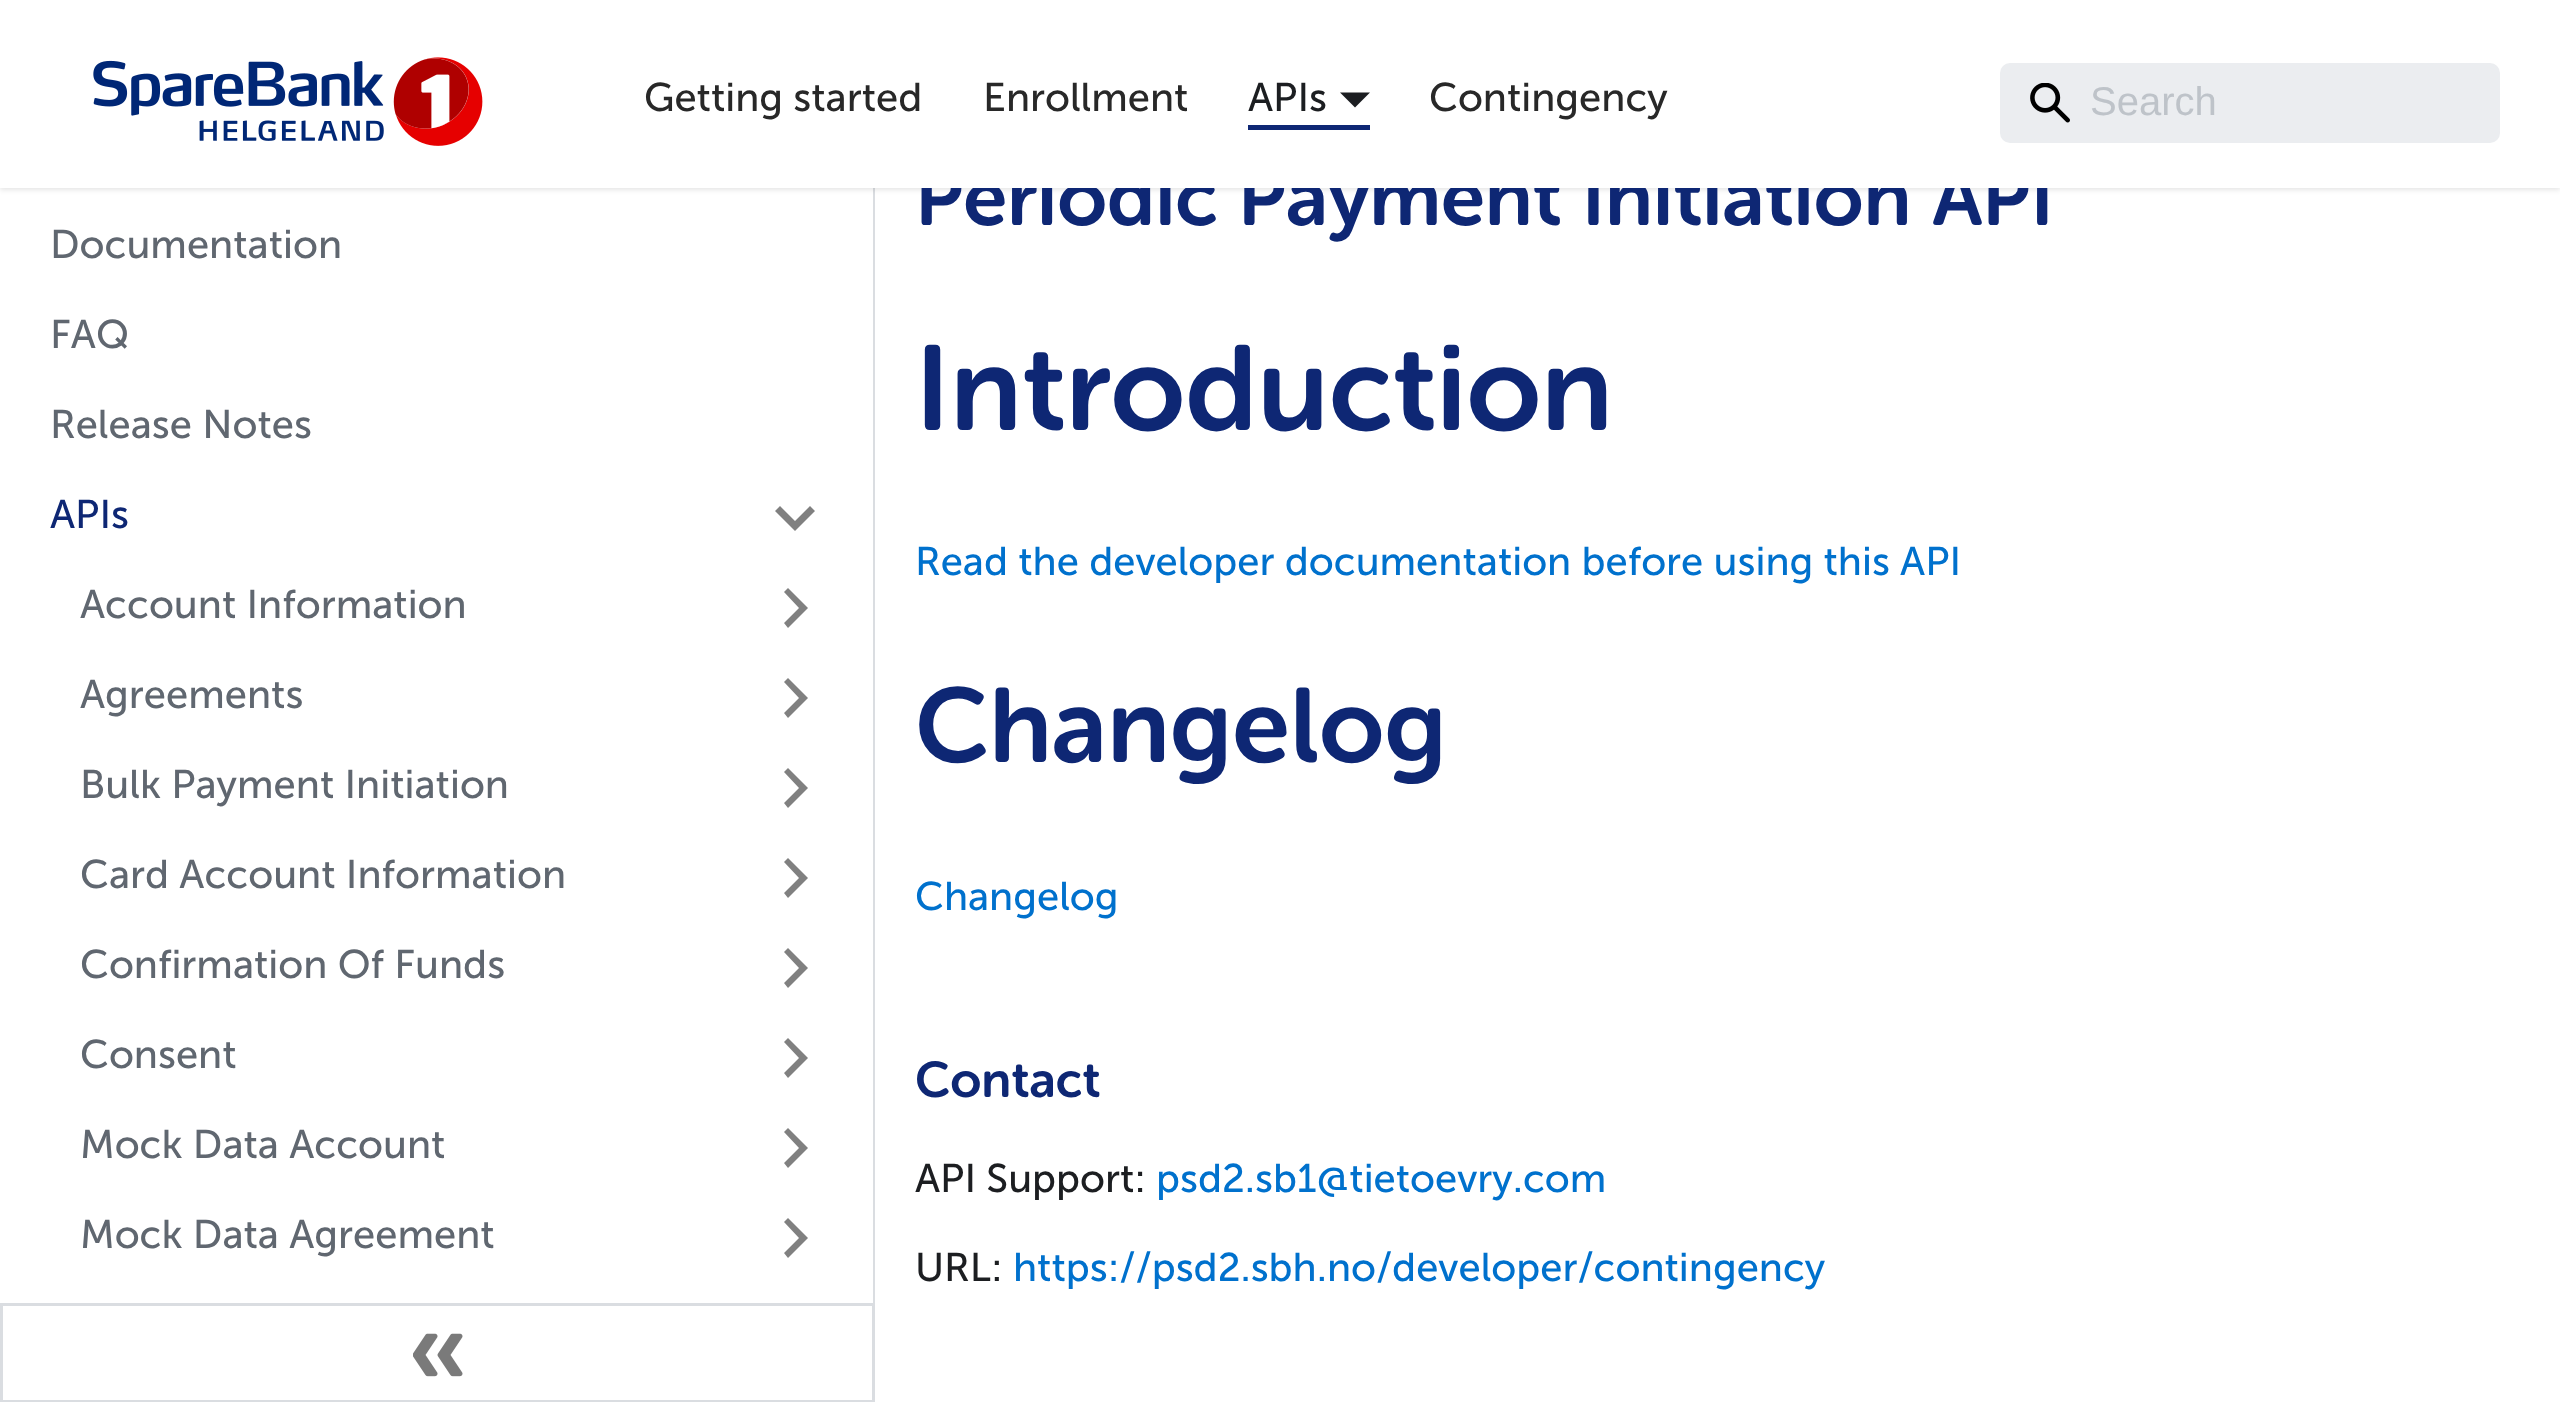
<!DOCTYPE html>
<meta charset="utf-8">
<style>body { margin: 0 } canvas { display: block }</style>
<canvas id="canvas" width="2560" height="1402"></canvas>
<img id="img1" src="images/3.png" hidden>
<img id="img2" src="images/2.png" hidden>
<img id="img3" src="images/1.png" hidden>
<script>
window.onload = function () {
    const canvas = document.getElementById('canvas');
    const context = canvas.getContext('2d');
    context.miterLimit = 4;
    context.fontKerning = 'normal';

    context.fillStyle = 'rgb(255, 255, 255)';
    context.fillRect(0, 0, 2560, 1402);
    context.fillStyle = 'rgb(218, 221, 225)';
    context.fillRect(873, 188, 2, 1115);
    context.fillStyle = 'rgba(0, 0, 0, 0.1)';
    context.filter = 'blur(2.5px)';
    context.beginPath();
    context.rect(0, 3, 2560, 187);
    context.fill();
    context.filter = 'none';
    context.fillStyle = 'rgb(128, 128, 128)';
    context.beginPath();
    context.moveTo(810, 506);
    context.lineTo(795, 521);
    context.lineTo(780, 506);
    context.lineTo(775, 511);
    context.lineTo(795, 531);
    context.lineTo(815, 511);
    context.closePath();
    context.fill();
    context.beginPath();
    context.moveTo(784, 592);
    context.lineTo(799, 608);
    context.lineTo(784, 623);
    context.lineTo(788, 628);
    context.lineTo(808, 608);
    context.lineTo(788, 588);
    context.closePath();
    context.fill();
    context.beginPath();
    context.moveTo(784, 682);
    context.lineTo(799, 698);
    context.lineTo(784, 713);
    context.lineTo(788, 718);
    context.lineTo(808, 698);
    context.lineTo(788, 678);
    context.closePath();
    context.fill();
    context.beginPath();
    context.moveTo(784, 772);
    context.lineTo(799, 788);
    context.lineTo(784, 803);
    context.lineTo(788, 808);
    context.lineTo(808, 788);
    context.lineTo(788, 768);
    context.closePath();
    context.fill();
    context.beginPath();
    context.moveTo(784, 862);
    context.lineTo(799, 878);
    context.lineTo(784, 893);
    context.lineTo(788, 898);
    context.lineTo(808, 878);
    context.lineTo(788, 858);
    context.closePath();
    context.fill();
    context.beginPath();
    context.moveTo(784, 952);
    context.lineTo(799, 968);
    context.lineTo(784, 983);
    context.lineTo(788, 988);
    context.lineTo(808, 968);
    context.lineTo(788, 948);
    context.closePath();
    context.fill();
    context.beginPath();
    context.moveTo(784, 1042);
    context.lineTo(799, 1058);
    context.lineTo(784, 1073);
    context.lineTo(788, 1078);
    context.lineTo(808, 1058);
    context.lineTo(788, 1038);
    context.closePath();
    context.fill();
    context.beginPath();
    context.moveTo(784, 1132);
    context.lineTo(799, 1148);
    context.lineTo(784, 1163);
    context.lineTo(788, 1168);
    context.lineTo(808, 1148);
    context.lineTo(788, 1128);
    context.closePath();
    context.fill();
    context.beginPath();
    context.moveTo(784, 1222);
    context.lineTo(799, 1238);
    context.lineTo(784, 1253);
    context.lineTo(788, 1258);
    context.lineTo(808, 1238);
    context.lineTo(788, 1218);
    context.closePath();
    context.fill();
    context.strokeStyle = 'rgb(218, 221, 225)';
    context.lineWidth = 3;
    context.strokeRect(1.5, 1304.5, 872, 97);
    context.drawImage(document.getElementById('img1'), 413, 1333, 50, 44);
    context.font = '40px "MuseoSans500"';
    context.fillStyle = 'rgb(96, 103, 112)';
    context.fillText('Documentation', 50, 258);
    context.fillText('FAQ', 50, 348);
    context.fillText('Release Notes', 50, 438);
    context.fillStyle = 'rgb(14, 39, 116)';
    context.fillText('APIs', 50, 528);
    context.fillStyle = 'rgb(96, 103, 112)';
    context.fillText('Account Information', 80, 618);
    context.fillText('Agreements', 80, 708);
    context.fillText('Bulk Payment Initiation', 80, 798);
    context.fillText('Card Account Information', 80, 888);
    context.fillText('Confirmation Of Funds', 80, 978);
    context.fillText('Consent', 80, 1068);
    context.fillText('Mock Data Account', 80, 1158);
    context.fillText('Mock Data Agreement', 80, 1248);
    context.font = '80px "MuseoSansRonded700"';
    context.fillStyle = 'rgb(14, 39, 116)';
    context.fillText('Periodic Payment Initiation API', 915, 225);
    context.fillStyle = 'rgb(255, 255, 255)';
    context.fillRect(0, 0, 2560, 188);
    context.fillStyle = 'rgb(235, 237, 240)';
    context.beginPath();
    context.roundRect(2000, 63, 500, 80, 10);
    context.fill();
    context.font = '40px Liberation Sans';
    context.fillStyle = 'rgb(190, 195, 201)';
    context.fillText('Search', 2090, 115);
    context.drawImage(document.getElementById('img2'), 2030, 83, 40, 40);
    context.font = '40px "MuseoSans500"';
    context.fillStyle = 'rgb(40, 40, 40)';
    context.fillText('Contingency', 1429, 111);
    context.fillStyle = 'rgb(28, 30, 33)';
    context.beginPath();
    context.moveTo(1340, 92.5);
    context.lineTo(1370, 92.5);
    context.lineTo(1355, 107.5);
    context.closePath();
    context.fill();
    context.fillText('APIs', 1248, 111);
    context.fillStyle = 'rgb(40, 40, 40)';
    context.fillText('Enrollment', 983, 111);
    context.fillText('Getting started', 644, 111);
    context.drawImage(document.getElementById('img3'), 93, 57, 390, 89);
    context.fillStyle = 'rgb(14, 39, 116)';
    context.fillRect(1248, 125, 122, 5);
    context.font = '120px "MuseoSansRonded700"';
    context.fillText('Introduction', 915, 430);
    context.font = '40px "MuseoSans500"';
    context.fillStyle = 'rgb(0, 113, 205)';
    context.fillText('Read the developer documentation before using this API', 915, 575);
    context.font = '105px "MuseoSansRonded700"';
    context.fillStyle = 'rgb(14, 39, 116)';
    context.fillText('Changelog', 915, 762);
    context.font = '40px "MuseoSans500"';
    context.fillStyle = 'rgb(0, 113, 205)';
    context.fillText('Changelog', 915, 910);
    context.font = '50px "MuseoSansRonded700"';
    context.fillStyle = 'rgb(14, 39, 116)';
    context.fillText('Contact', 915, 1097);
    context.font = '40px "MuseoSans500"';
    context.fillStyle = 'rgb(28, 30, 33)';
    context.fillText('API Support:', 915, 1192);
    context.fillStyle = 'rgb(0, 113, 205)';
    context.fillText('psd2.sb1@tietoevry.com', 1156, 1192);
    context.fillStyle = 'rgb(28, 30, 33)';
    context.fillText('URL:', 915, 1281);
    context.fillStyle = 'rgb(0, 113, 205)';
    context.fillText('https://psd2.sbh.no/developer/contingency', 1013, 1281);
};
</script>
